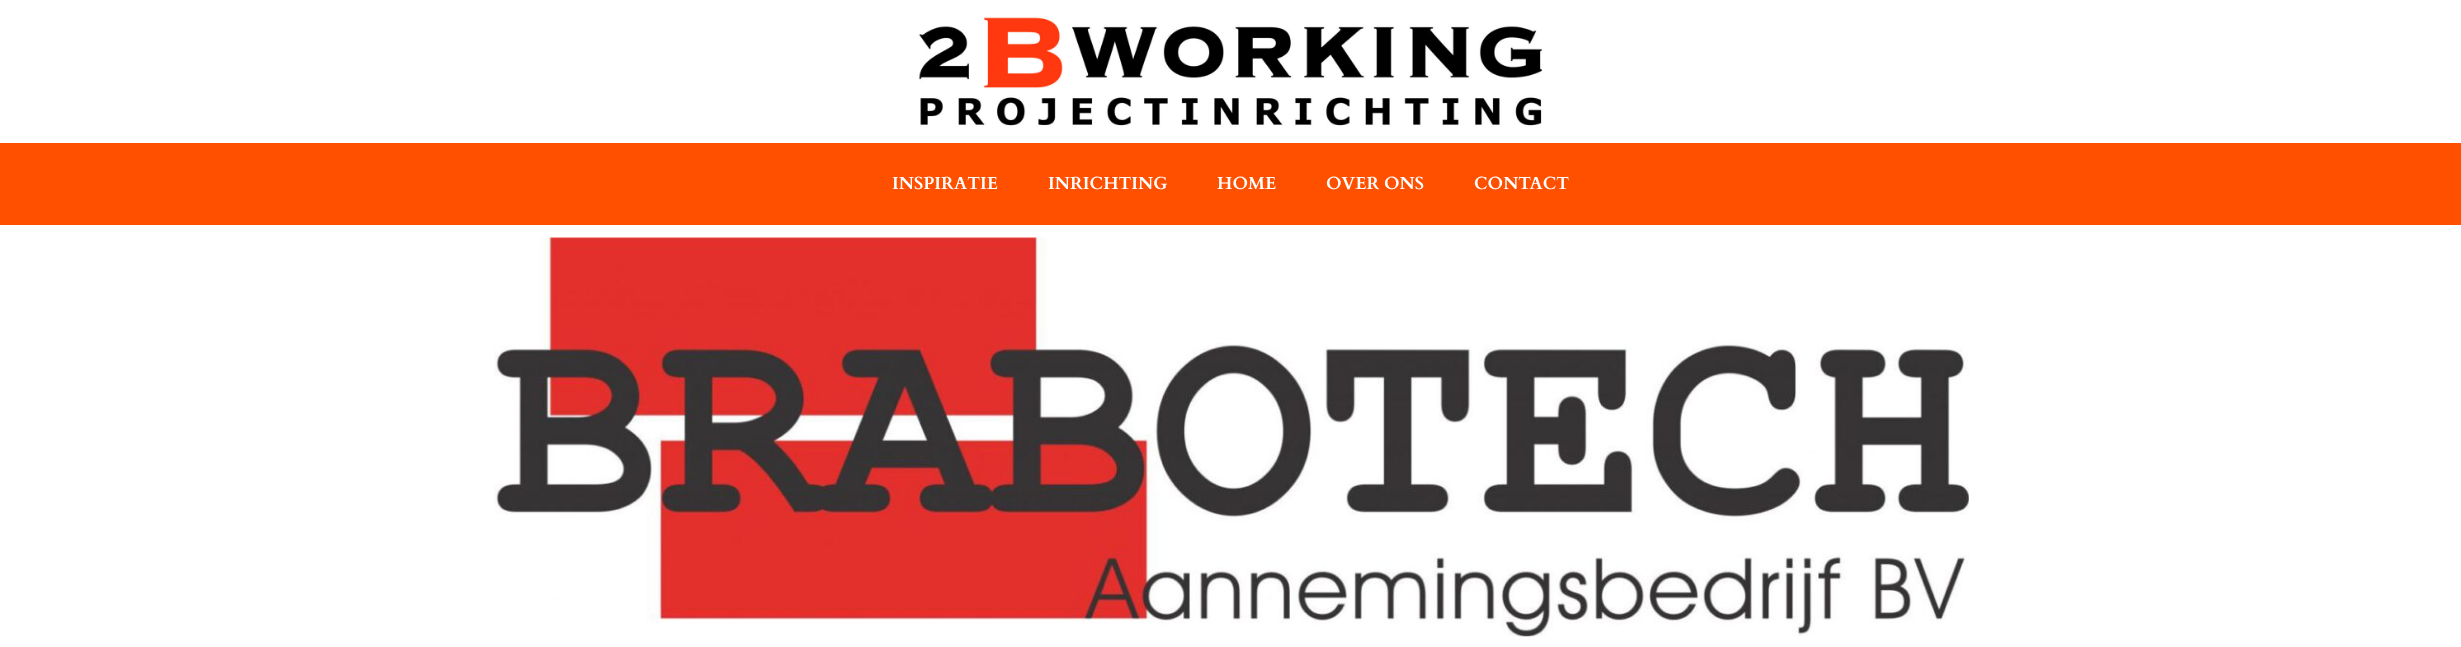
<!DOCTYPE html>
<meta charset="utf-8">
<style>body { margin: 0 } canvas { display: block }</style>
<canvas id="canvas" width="2461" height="647"></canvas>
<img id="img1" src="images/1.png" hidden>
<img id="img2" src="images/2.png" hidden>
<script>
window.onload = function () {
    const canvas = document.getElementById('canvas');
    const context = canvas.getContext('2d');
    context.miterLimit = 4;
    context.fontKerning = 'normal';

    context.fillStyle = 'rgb(255, 255, 255)';
    context.fillRect(0, 0, 2461, 647);
    context.drawImage(document.getElementById('img1'), 918, 16, 625, 111);
    context.fillStyle = 'rgb(255, 80, 0)';
    context.fillRect(0, 143, 2461, 82);
    context.drawImage(document.getElementById('img2'), 494, 237, 1475, 400);
    context.font = 'bold 17.5px Cardo';
    context.fillStyle = 'rgb(255, 255, 255)';
    context.fillText('INSPIRATIE', 892, 189);
    context.fillText('INRICHTING', 1048, 189);
    context.fillText('HOME', 1217, 189);
    context.fillText('OVER ONS', 1326, 189);
    context.fillText('CONTACT', 1474, 189);
};
</script>
